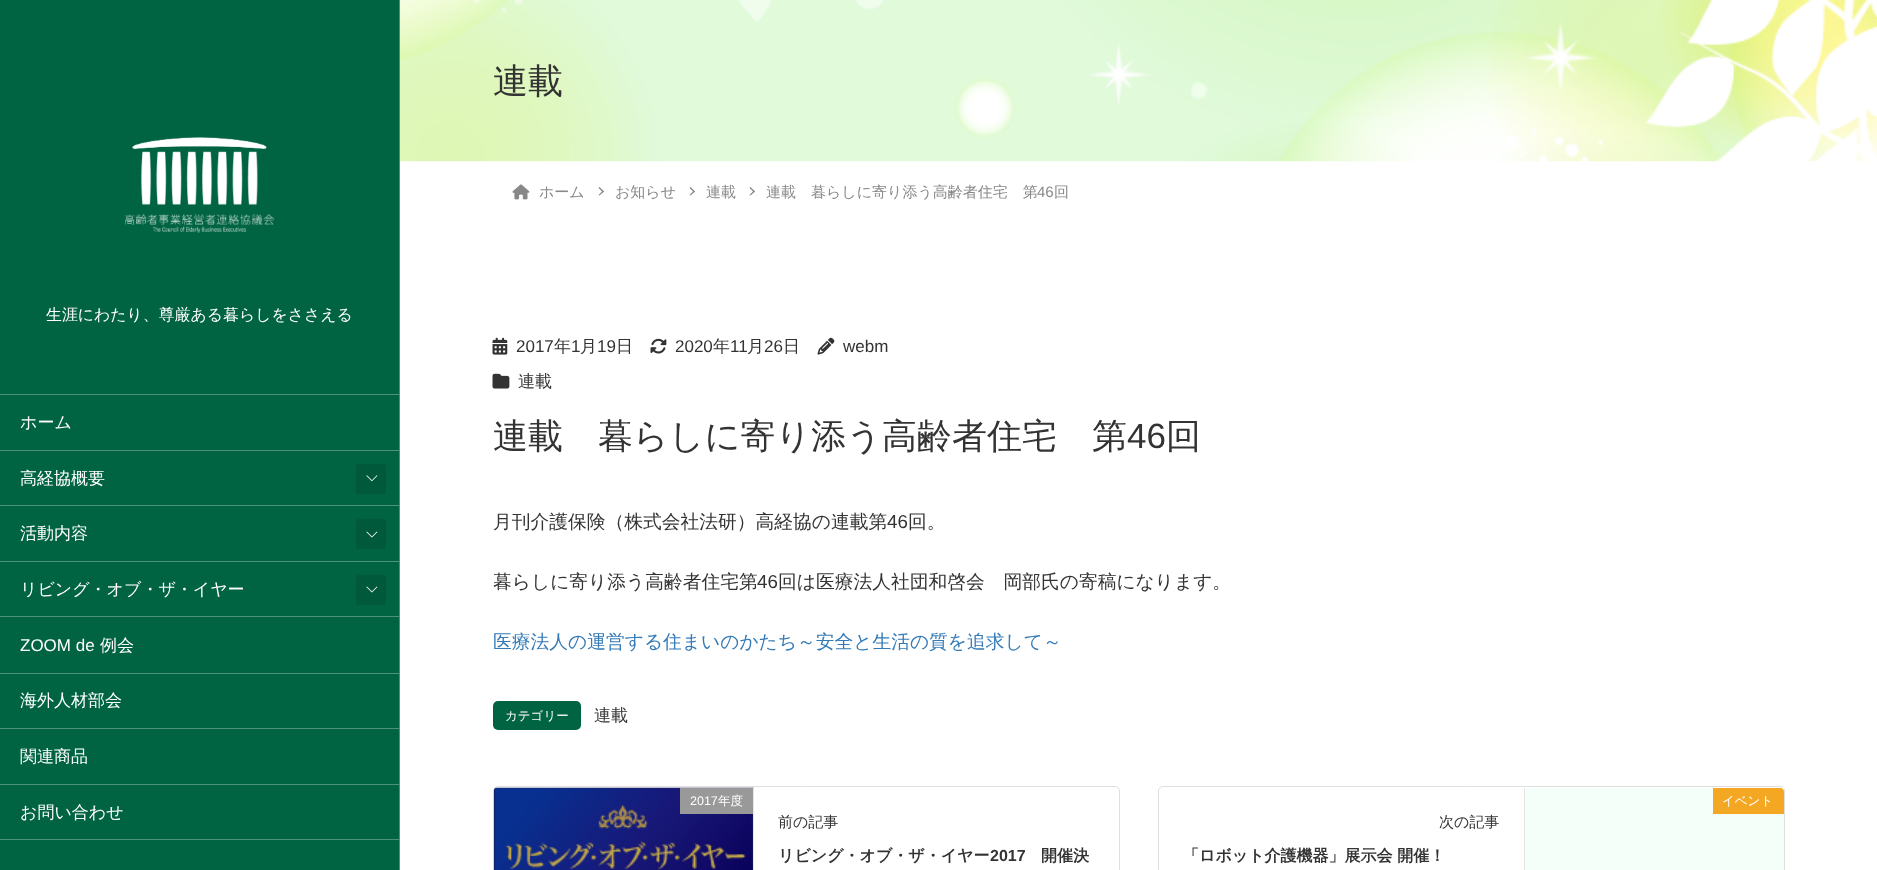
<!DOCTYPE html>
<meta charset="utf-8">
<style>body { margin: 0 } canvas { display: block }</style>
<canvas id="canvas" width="1877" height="870"></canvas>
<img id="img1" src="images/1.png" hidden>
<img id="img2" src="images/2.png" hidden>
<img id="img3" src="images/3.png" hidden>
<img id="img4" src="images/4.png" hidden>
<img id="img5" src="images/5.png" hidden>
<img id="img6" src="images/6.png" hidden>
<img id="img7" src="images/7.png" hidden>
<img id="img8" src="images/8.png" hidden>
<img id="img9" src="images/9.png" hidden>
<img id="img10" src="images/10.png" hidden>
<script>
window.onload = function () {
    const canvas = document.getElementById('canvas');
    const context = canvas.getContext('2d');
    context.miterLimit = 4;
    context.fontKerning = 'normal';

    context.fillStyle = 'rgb(255, 255, 255)';
    context.fillRect(0, 0, 1877, 870);
    context.fillStyle = 'rgb(0, 99, 65)';
    context.fillRect(0, 0, 399, 870);
    context.fillStyle = 'rgb(77, 146, 122)';
    context.fillRect(399, 0, 1, 870);
    context.drawImage(document.getElementById('img1'), 124, 137, 151, 96);
    context.fillRect(0, 394, 399, 1);
    context.fillRect(0, 450, 399, 1);
    context.fillStyle = 'rgb(0, 89, 59)';
    context.beginPath();
    context.roundRect(356, 464, 30, 30, 2.5);
    context.fill();
    context.drawImage(document.getElementById('img2'), 366, 475, 12, 7);
    context.fillStyle = 'rgb(77, 146, 122)';
    context.fillRect(0, 505, 399, 1);
    context.fillStyle = 'rgb(0, 89, 59)';
    context.beginPath();
    context.roundRect(356, 519, 30, 30, 2.5);
    context.fill();
    context.drawImage(document.getElementById('img3'), 366, 531, 12, 7);
    context.fillStyle = 'rgb(77, 146, 122)';
    context.fillRect(0, 561, 399, 1);
    context.fillStyle = 'rgb(0, 89, 59)';
    context.beginPath();
    context.roundRect(356, 575, 30, 30, 2.5);
    context.fill();
    context.drawImage(document.getElementById('img3'), 366, 586, 12, 7);
    context.fillStyle = 'rgb(77, 146, 122)';
    context.fillRect(0, 616, 399, 1);
    context.fillRect(0, 673, 399, 1);
    context.fillRect(0, 728, 399, 1);
    context.fillRect(0, 784, 399, 1);
    context.fillRect(0, 839, 399, 1);
    context.drawImage(document.getElementById('img4'), 400, 0, 1477, 162);
    context.drawImage(document.getElementById('img5'), 512, 184, 18, 16);
    context.fillStyle = 'rgb(136, 136, 136)';
    context.beginPath();
    context.moveTo(599.5, 187);
    context.lineTo(604, 191.5);
    context.lineTo(603, 192.5);
    context.lineTo(598.5, 188);
    context.closePath();
    context.fill();
    context.beginPath();
    context.moveTo(603, 190.5);
    context.lineTo(604, 191.5);
    context.lineTo(599.5, 195.5);
    context.lineTo(598.5, 195);
    context.closePath();
    context.fill();
    context.beginPath();
    context.moveTo(690.5, 187);
    context.lineTo(695, 191.5);
    context.lineTo(694, 192.5);
    context.lineTo(689.5, 188);
    context.closePath();
    context.fill();
    context.beginPath();
    context.moveTo(694, 190.5);
    context.lineTo(695, 191.5);
    context.lineTo(690.5, 195.5);
    context.lineTo(689.5, 195);
    context.closePath();
    context.fill();
    context.beginPath();
    context.moveTo(750.5, 187);
    context.lineTo(755, 191.5);
    context.lineTo(754, 192.5);
    context.lineTo(749.5, 188);
    context.closePath();
    context.fill();
    context.beginPath();
    context.moveTo(754, 190.5);
    context.lineTo(755, 191.5);
    context.lineTo(750.5, 195.5);
    context.lineTo(749.5, 195);
    context.closePath();
    context.fill();
    context.drawImage(document.getElementById('img6'), 492, 337, 16, 18);
    context.drawImage(document.getElementById('img7'), 650, 338, 17, 16);
    context.drawImage(document.getElementById('img8'), 817, 337, 18, 18);
    context.drawImage(document.getElementById('img9'), 492, 373, 18, 16);
    context.fillStyle = 'rgb(0, 99, 65)';
    context.beginPath();
    context.roundRect(493, 701, 88, 29, 5);
    context.fill();
    context.beginPath();
    context.roundRect(493.5, 786.5, 626, 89, 4.5);
    context.strokeStyle = 'rgb(223, 223, 223)';
    context.stroke();
    context.drawImage(document.getElementById('img10'), 493, 787, 261, 83);
    context.fillStyle = 'rgb(229, 229, 229)';
    context.fillRect(753, 788, 1, 82);
    context.fillStyle = 'rgb(153, 153, 153)';
    context.fillRect(680, 788, 73, 26);
    context.beginPath();
    context.roundRect(1158.5, 786.5, 626, 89, 4.5);
    context.stroke();
    context.fillStyle = 'rgb(245, 255, 250)';
    context.fillRect(1525, 788, 259, 82);
    context.fillStyle = 'rgb(229, 229, 229)';
    context.fillRect(1524, 788, 1, 82);
    context.fillStyle = 'rgb(244, 167, 34)';
    context.beginPath();
    context.roundRect(1713, 788, 71, 26, [0, 4, 0, 0]);
    context.fill();
    context.font = '500 15.9px WenQuanYi Zen Hei';
    context.fillStyle = 'rgb(255, 255, 255)';
    context.fillText('生涯にわたり、尊厳ある暮らしをささえる', 46, 320);
    context.font = '500 17px WenQuanYi Zen Hei';
    context.fillText('ホーム', 20, 428);
    context.fillText('高経協概要', 20, 484);
    context.fillText('活動内容', 20, 539);
    context.fillText('リビング・オブ・ザ・イヤー', 20, 595);
    context.font = '17px Liberation Sans';
    context.fillText('ZOOM de', 20, 651);
    context.font = '500 17px WenQuanYi Zen Hei';
    context.fillText('例会', 100, 651);
    context.fillText('海外人材部会', 20, 706);
    context.fillText('関連商品', 20, 762);
    context.fillText('お問い合わせ', 20, 818);
    context.font = '500 35px WenQuanYi Zen Hei';
    context.fillStyle = 'rgb(51, 51, 51)';
    context.fillText('連載', 493, 93);
    context.font = '500 15px WenQuanYi Zen Hei';
    context.fillStyle = 'rgb(136, 136, 136)';
    context.fillText('ホーム', 539, 197);
    context.fillText('お知らせ', 615, 197);
    context.fillText('連載', 706, 197);
    context.fillText('連載　暮らしに寄り添う高齢者住宅　第', 766, 197);
    context.font = '15px Liberation Sans';
    context.fillText('46', 1037, 197);
    context.font = '500 15px WenQuanYi Zen Hei';
    context.fillText('回', 1054, 197);
    context.font = '17px Liberation Sans';
    context.fillStyle = 'rgb(51, 51, 51)';
    context.fillText('2017', 516, 352);
    context.font = '500 17px WenQuanYi Zen Hei';
    context.fillText('年', 554, 352);
    context.font = '17px Liberation Sans';
    context.fillText('1', 571, 352);
    context.font = '500 17px WenQuanYi Zen Hei';
    context.fillText('月', 580, 352);
    context.font = '17px Liberation Sans';
    context.fillText('19', 597, 352);
    context.font = '500 17px WenQuanYi Zen Hei';
    context.fillText('日', 616, 352);
    context.font = '17px Liberation Sans';
    context.fillText('2020', 675, 352);
    context.font = '500 17px WenQuanYi Zen Hei';
    context.fillText('年', 713, 352);
    context.font = '17px Liberation Sans';
    context.fillText('11', 730, 352);
    context.font = '500 17px WenQuanYi Zen Hei';
    context.fillText('月', 747, 352);
    context.font = '17px Liberation Sans';
    context.fillText('26', 764, 352);
    context.font = '500 17px WenQuanYi Zen Hei';
    context.fillText('日', 783, 352);
    context.font = '17px Liberation Sans';
    context.fillText('webm', 843, 352);
    context.font = '500 17px WenQuanYi Zen Hei';
    context.fillText('連載', 518, 387);
    context.font = '500 35px WenQuanYi Zen Hei';
    context.fillText('連載　暮らしに寄り添う高齢者住宅　第', 493, 448);
    context.font = '35px Liberation Sans';
    context.fillText('46', 1127, 448);
    context.font = '500 35px WenQuanYi Zen Hei';
    context.fillText('回', 1166, 448);
    context.font = '500 18.75px WenQuanYi Zen Hei';
    context.fillText('月刊介護保険（株式会社法研）高経協の連載第', 493, 528);
    context.font = '18.75px Liberation Sans';
    context.fillText('46', 887, 528);
    context.font = '500 18.75px WenQuanYi Zen Hei';
    context.fillText('回。', 908, 528);
    context.fillText('暮らしに寄り添う高齢者住宅第', 493, 588);
    context.font = '18.75px Liberation Sans';
    context.fillText('46', 757, 588);
    context.font = '500 18.75px WenQuanYi Zen Hei';
    context.fillText('回は医療法人社団和啓会　岡部氏の寄稿になります。', 778, 588);
    context.fillStyle = 'rgb(51, 122, 183)';
    context.fillText('医療法人の運営する住まいのかたち～安全と生活の質を追求して～', 493, 648);
    context.font = '500 12.5px WenQuanYi Zen Hei';
    context.fillStyle = 'rgb(255, 255, 255)';
    context.fillText('カテゴリー', 505, 720);
    context.font = '500 17px WenQuanYi Zen Hei';
    context.fillStyle = 'rgb(51, 51, 51)';
    context.fillText('連載', 594, 721);
    context.font = '12.5px Liberation Sans';
    context.fillStyle = 'rgb(255, 255, 255)';
    context.fillText('2017', 690, 805);
    context.font = '500 12.5px WenQuanYi Zen Hei';
    context.fillText('年度', 718, 805);
    context.font = '500 15px WenQuanYi Zen Hei';
    context.fillStyle = 'rgb(51, 51, 51)';
    context.fillText('前の記事', 778, 827);
    context.font = 'bold 16px WenQuanYi Zen Hei';
    context.fillText('リビング・オブ・ザ・イヤー', 778, 861);
    context.font = 'bold 16px Liberation Sans';
    context.fillText('2017', 990, 861);
    context.font = 'bold 16px WenQuanYi Zen Hei';
    context.fillText('開催決', 1041, 861);
    context.font = '500 12.5px WenQuanYi Zen Hei';
    context.fillStyle = 'rgb(255, 255, 255)';
    context.fillText('イベント', 1722, 805);
    context.font = '500 15px WenQuanYi Zen Hei';
    context.fillStyle = 'rgb(51, 51, 51)';
    context.fillText('次の記事', 1439, 827);
    context.font = 'bold 16px WenQuanYi Zen Hei';
    context.fillText('「ロボット介護機器」展示会 開催！', 1183, 861);
};
</script>
